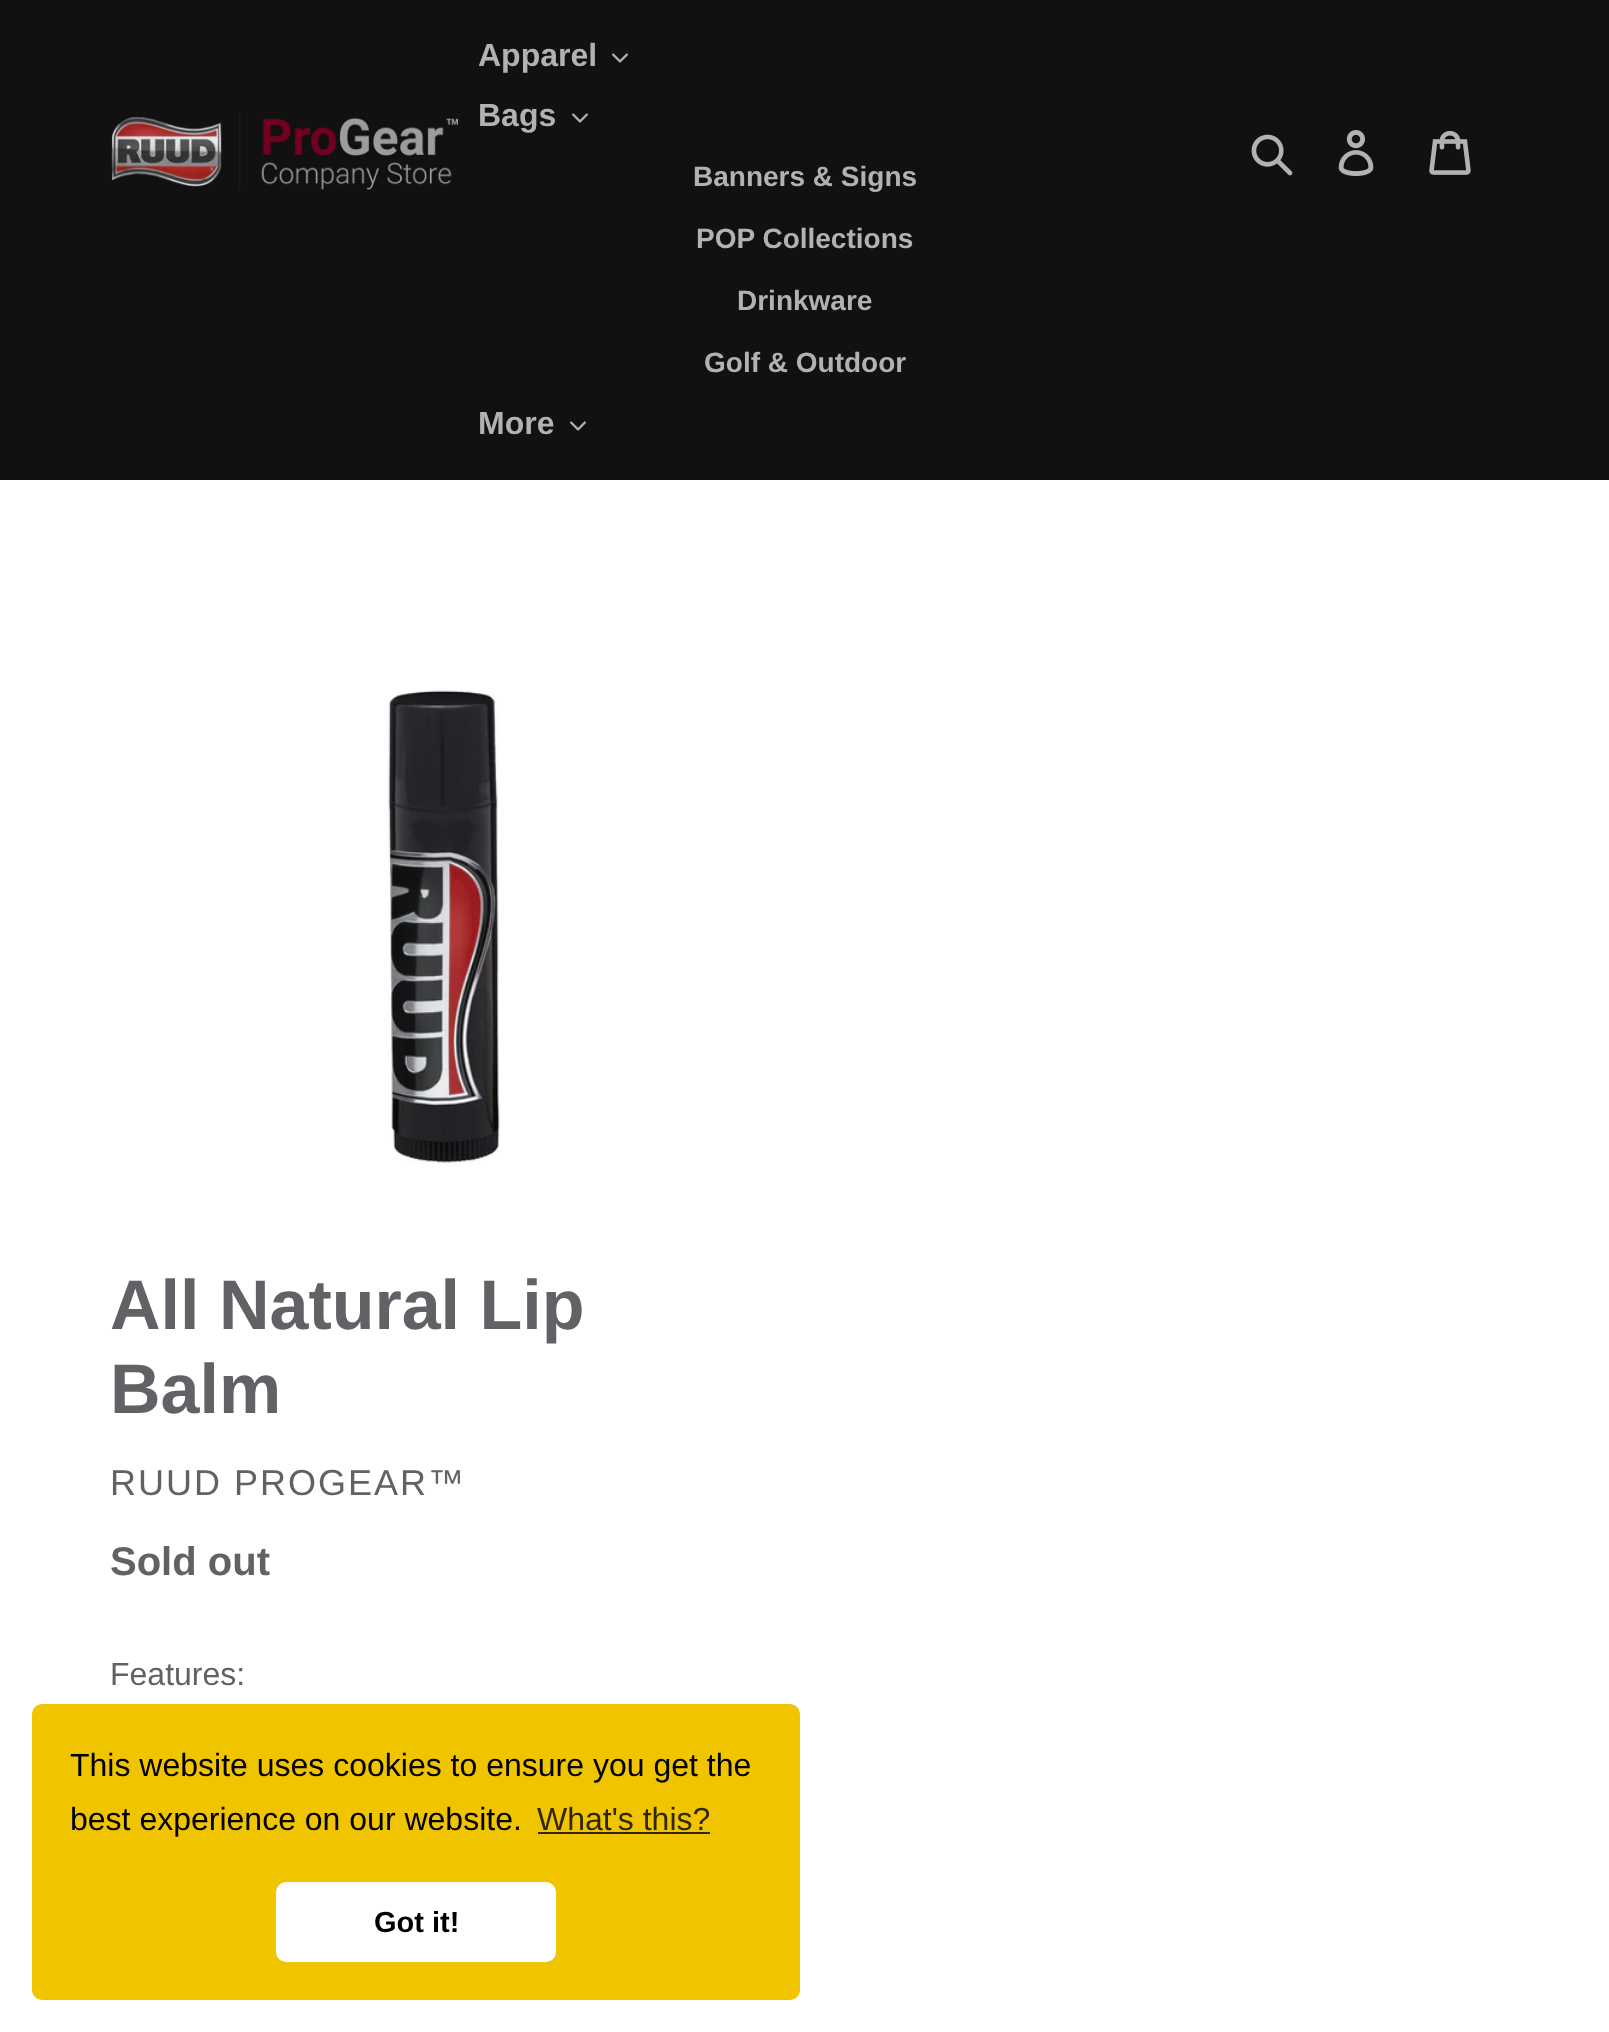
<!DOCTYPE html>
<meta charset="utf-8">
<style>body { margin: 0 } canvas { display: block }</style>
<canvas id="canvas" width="1609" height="2032"></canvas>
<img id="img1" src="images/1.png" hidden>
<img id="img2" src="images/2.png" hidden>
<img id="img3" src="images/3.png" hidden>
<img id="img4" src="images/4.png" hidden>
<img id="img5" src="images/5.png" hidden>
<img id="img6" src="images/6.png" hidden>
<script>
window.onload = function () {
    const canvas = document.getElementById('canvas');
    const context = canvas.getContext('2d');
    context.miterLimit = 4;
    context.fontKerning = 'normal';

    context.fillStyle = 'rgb(255, 255, 255)';
    context.fillRect(0, 0, 1609, 2032);
    context.fillStyle = 'rgb(17, 17, 17)';
    context.fillRect(0, 0, 1609, 480);
    context.drawImage(document.getElementById('img1'), 111, 112, 347, 78);
    context.drawImage(document.getElementById('img2'), 612, 53, 16, 10);
    context.drawImage(document.getElementById('img2'), 572, 113, 16, 10);
    context.drawImage(document.getElementById('img2'), 570, 421, 16, 10);
    context.drawImage(document.getElementById('img3'), 1251, 134, 42, 42);
    context.drawImage(document.getElementById('img4'), 1338, 130, 36, 46);
    context.drawImage(document.getElementById('img5'), 1429, 130, 42, 45);
    context.drawImage(document.getElementById('img6'), 388, 690, 113, 476);
    context.fillStyle = 'rgb(241, 196, 0)';
    context.beginPath();
    context.roundRect(32, 1704, 768, 296, 10);
    context.fill();
    context.fillStyle = 'rgb(48, 39, 0)';
    context.fillRect(538, 1832, 172, 2);
    context.fillStyle = 'rgb(255, 255, 255)';
    context.beginPath();
    context.roundRect(276, 1882, 280, 80, 10);
    context.fill();
    context.font = 'bold 32px Liberation Sans';
    context.fillStyle = 'rgb(177, 179, 179)';
    context.fillText('Apparel', 478, 66);
    context.fillText('Bags', 478, 126);
    context.font = 'bold 28px Liberation Sans';
    context.fillText('Banners & Signs', 693, 186);
    context.fillText('POP Collections', 696, 248);
    context.fillText('Drinkware', 737, 310);
    context.fillText('Golf & Outdoor', 704, 372);
    context.font = 'bold 32px Liberation Sans';
    context.fillText('More', 478, 434);
    context.font = 'bold 70px Liberation Sans';
    context.fillStyle = 'rgb(97, 98, 101)';
    context.fillText('All Natural Lip', 110, 1329);
    context.fillText('Balm', 110, 1413);
    context.letterSpacing = '2px';
    context.font = '36px Liberation Sans';
    context.fillText('RUUD PROGEAR™', 110, 1495);
    context.letterSpacing = '0px';
    context.font = 'bold 40px Liberation Sans';
    context.fillText('Sold out', 110, 1575);
    context.font = '32px Liberation Sans';
    context.fillText('Features:', 110, 1685);
    context.fillStyle = 'rgb(0, 0, 0)';
    context.fillText('This website uses cookies to ensure you get the', 70, 1776);
    context.fillText('best experience on our website.', 70, 1830);
    context.fillStyle = 'rgb(48, 39, 0)';
    context.fillText('What\'s this?', 537, 1830);
    context.font = 'bold 29px Liberation Sans';
    context.fillStyle = 'rgb(0, 0, 0)';
    context.fillText('Got it!', 374, 1932);
};
</script>
